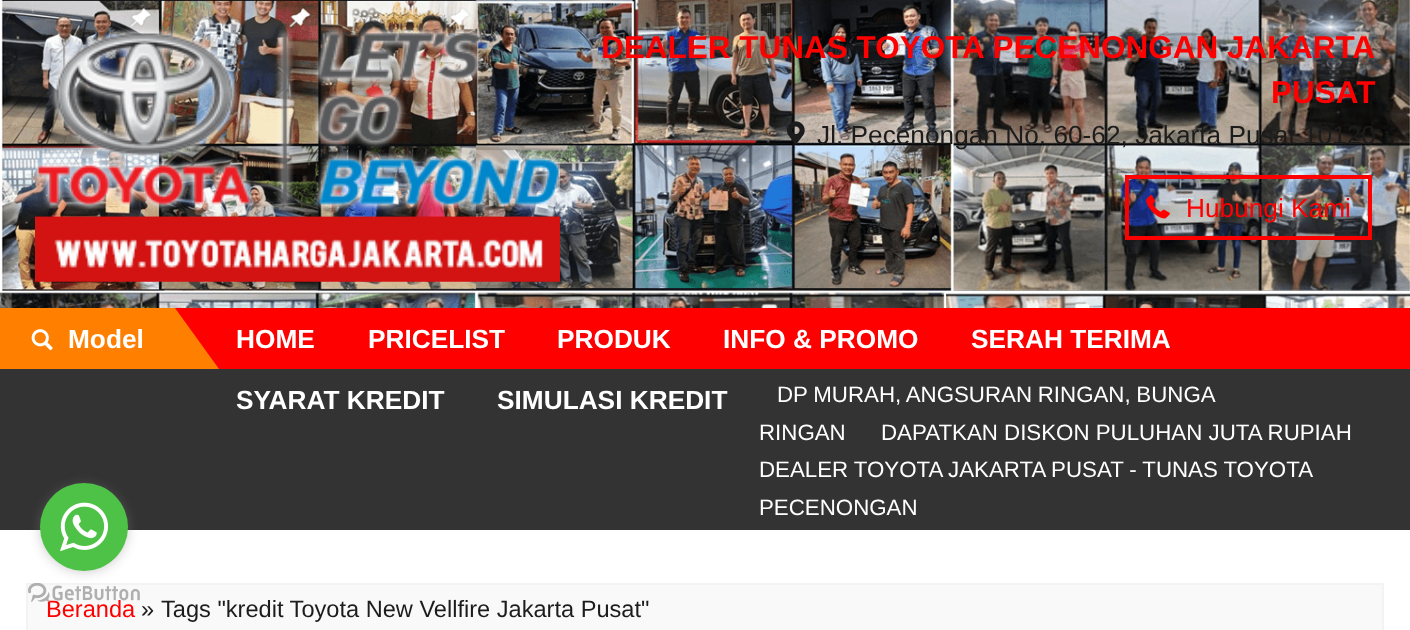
<!DOCTYPE html>
<meta charset="utf-8">
<style>body { margin: 0 } canvas { display: block }</style>
<canvas id="canvas" width="1410" height="630"></canvas>
<img id="img1" src="images/1.png" hidden>
<img id="img2" src="images/2.png" hidden>
<img id="img3" src="images/3.png" hidden>
<img id="img4" src="images/4.png" hidden>
<img id="img5" src="images/5.png" hidden>
<img id="img6" src="images/7.png" hidden>
<img id="img7" src="images/6.png" hidden>
<script>
window.onload = function () {
    const canvas = document.getElementById('canvas');
    const context = canvas.getContext('2d');
    context.miterLimit = 4;
    context.fontKerning = 'normal';

    context.fillStyle = 'rgb(255, 255, 255)';
    context.fillRect(0, 0, 1410, 630);
    context.drawImage(document.getElementById('img1'), 0, 0, 1410, 308);
    context.drawImage(document.getElementById('img2'), 35, 26, 525, 256);
    context.drawImage(document.getElementById('img3'), 787, 121, 18, 24);
    context.strokeStyle = 'rgb(255, 0, 0)';
    context.lineWidth = 4;
    context.strokeRect(1127, 177, 243, 61);
    context.drawImage(document.getElementById('img4'), 1146, 194, 24, 25);
    context.fillStyle = 'rgb(255, 0, 0)';
    context.fillRect(175, 308, 1235, 61);
    context.fillStyle = 'rgb(255, 128, 0)';
    context.fillRect(0, 308, 175, 61);
    context.drawImage(document.getElementById('img5'), 31, 329, 22, 22);
    context.beginPath();
    context.moveTo(175, 369);
    context.lineTo(175, 308);
    context.lineTo(219, 369);
    context.closePath();
    context.fill();
    context.fillStyle = 'rgb(51, 51, 51)';
    context.fillRect(0, 369, 1410, 161);
    context.fillStyle = 'rgb(249, 249, 249)';
    context.beginPath();
    context.rect(27, 584, 1356, 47);
    context.fill();
    context.strokeStyle = 'rgb(243, 243, 243)';
    context.lineWidth = 2;
    context.stroke();
    context.font = 'bold 31.5px Liberation Sans';
    context.fillStyle = 'rgb(255, 0, 0)';
    context.fillText('DEALER TUNAS TOYOTA PECENONGAN JAKARTA', 601, 58);
    context.fillText('PUSAT', 1271, 103);
    context.font = '26.25px Liberation Sans';
    context.fillStyle = 'rgb(28, 28, 28)';
    context.fillText('Jl. Pecenongan No. 60-62, Jakarta Pusat 10120', 817, 144);
    context.fillStyle = 'rgb(255, 0, 0)';
    context.fillText('Hubungi Kami', 1186, 217);
    context.font = 'bold 26.25px Liberation Sans';
    context.fillStyle = 'rgb(255, 255, 255)';
    context.fillText('Model', 68, 348);
    context.fillText('HOME', 236, 348);
    context.fillText('PRICELIST', 368, 348);
    context.fillText('PRODUK', 557, 348);
    context.fillText('INFO & PROMO', 723, 348);
    context.fillText('SERAH TERIMA', 971, 348);
    context.fillText('SYARAT KREDIT', 236, 409);
    context.fillText('SIMULASI KREDIT', 497, 409);
    context.wordSpacing = '-0.5px';
    context.font = '22.3px Liberation Sans';
    context.fillText('DP MURAH, ANGSURAN RINGAN, BUNGA', 777, 402);
    context.wordSpacing = '0px';
    context.fillText('RINGAN', 759, 440);
    context.fillText('DAPATKAN DISKON PULUHAN JUTA RUPIAH', 881, 440);
    context.wordSpacing = '-0.25px';
    context.fillText('DEALER TOYOTA JAKARTA PUSAT - TUNAS TOYOTA', 759, 477);
    context.wordSpacing = '0px';
    context.fillText('PECENONGAN', 759, 515);
    context.font = '23.6px Liberation Sans';
    context.fillStyle = 'rgb(255, 0, 0)';
    context.fillText('Beranda', 46, 617);
    context.fillStyle = 'rgb(28, 28, 28)';
    context.fillText('»', 141, 617);
    context.fillText('Tags "kredit Toyota New Vellfire Jakarta Pusat"', 161, 617);
    context.drawImage(document.getElementById('img6'), 28, 583, 112, 19);
    context.fillStyle = 'rgba(136, 136, 136, 0.4)';
    context.filter = 'blur(6px)';
    context.beginPath();
    context.roundRect(40, 485, 88, 87, 43.5);
    context.fill();
    context.filter = 'none';
    context.fillStyle = 'rgb(77, 194, 71)';
    context.beginPath();
    context.arc(84, 527, 44, 0, 2 * Math.PI);
    context.fill();
    context.drawImage(document.getElementById('img7'), 60, 502, 49, 50);
};
</script>
